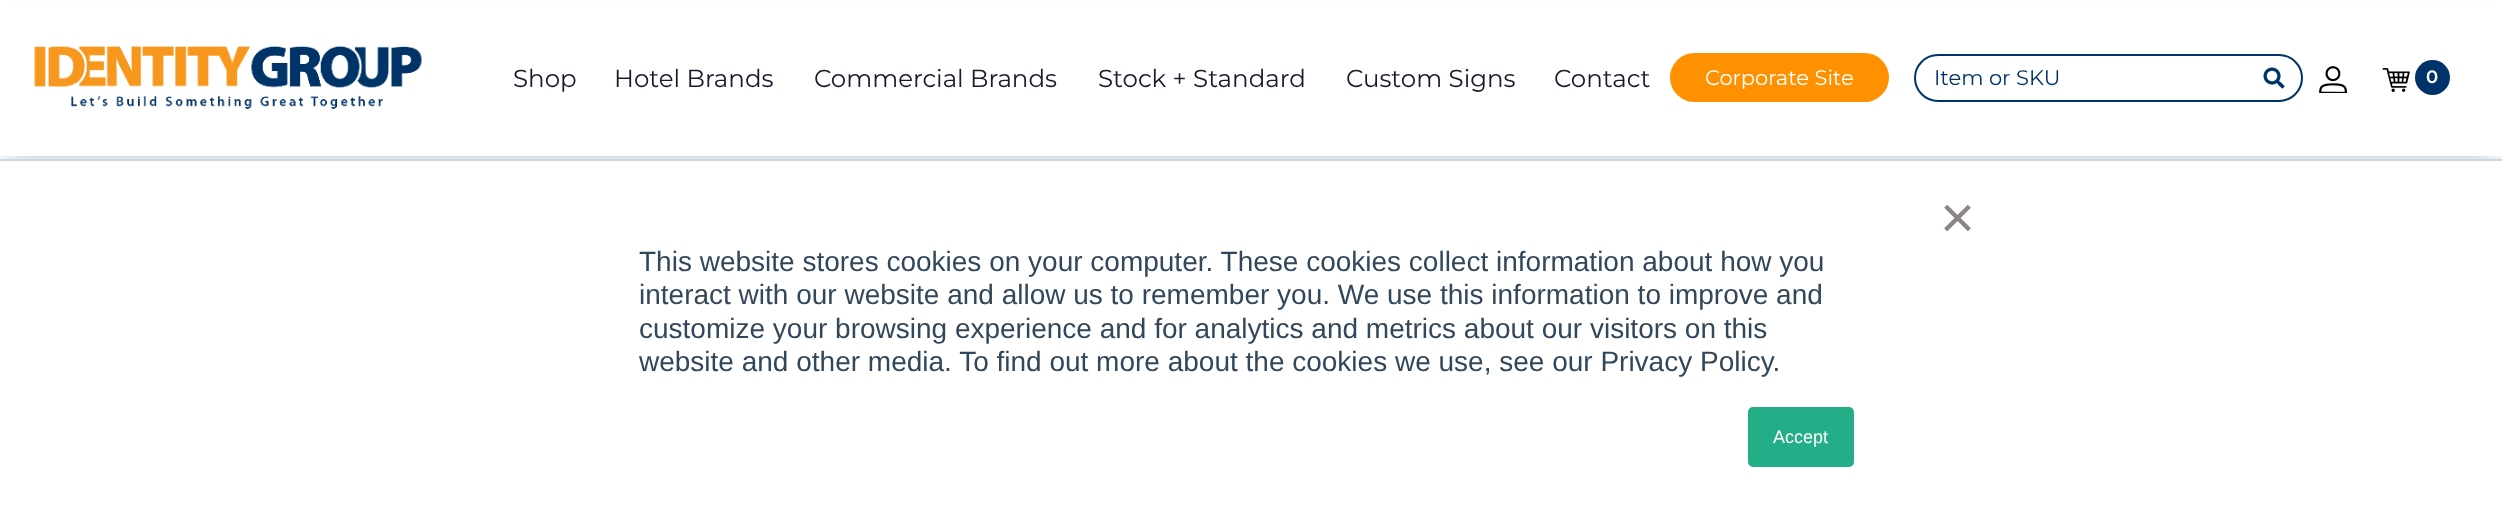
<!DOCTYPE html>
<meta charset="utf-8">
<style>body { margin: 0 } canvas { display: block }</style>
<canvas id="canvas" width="2502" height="505"></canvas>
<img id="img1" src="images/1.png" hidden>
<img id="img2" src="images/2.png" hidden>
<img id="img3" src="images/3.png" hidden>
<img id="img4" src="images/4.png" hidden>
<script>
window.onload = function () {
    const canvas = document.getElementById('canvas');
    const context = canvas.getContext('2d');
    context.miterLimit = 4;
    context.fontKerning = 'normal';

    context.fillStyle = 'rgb(255, 255, 255)';
    context.fillRect(0, 0, 2502, 505);
    context.fillStyle = 'rgba(0, 0, 0, 0.25)';
    context.filter = 'blur(12px)';
    context.beginPath();
    context.rect(11, 26, 2481, 135);
    context.fill();
    context.filter = 'none';
    context.fillStyle = 'rgb(255, 255, 255)';
    context.fillRect(0, 5, 2502, 151);
    context.drawImage(document.getElementById('img1'), 34, 46, 388, 63);
    context.fillStyle = 'rgb(255, 145, 0)';
    context.beginPath();
    context.roundRect(1670, 53, 219, 49, 24.5);
    context.fill();
    context.beginPath();
    context.roundRect(1915, 55, 387, 46, 23);
    context.strokeStyle = 'rgb(0, 51, 105)';
    context.lineWidth = 2;
    context.stroke();
    context.drawImage(document.getElementById('img2'), 2263, 67, 22, 22);
    context.drawImage(document.getElementById('img3'), 2319, 66, 28, 27);
    context.drawImage(document.getElementById('img4'), 2382, 68, 28, 24);
    context.fillStyle = 'rgb(0, 51, 105)';
    context.beginPath();
    context.arc(2432.5, 77.5, 17.5, 0, 2 * Math.PI);
    context.fill();
    context.fillStyle = 'rgb(234, 240, 246)';
    context.filter = 'blur(2px)';
    context.beginPath();
    context.rect(0, 158, 2502, 346);
    context.fill();
    context.filter = 'none';
    context.fillStyle = 'rgb(255, 255, 255)';
    context.fillRect(0, 161, 2502, 344);
    context.fillStyle = 'rgb(203, 214, 226)';
    context.fillRect(0, 159, 2502, 2);
    context.fillStyle = 'rgb(36, 174, 135)';
    context.beginPath();
    context.roundRect(1749, 408, 104, 58, 4);
    context.fill();
    context.strokeStyle = 'rgb(36, 174, 135)';
    context.stroke();
    context.font = '24.5px Montserrat';
    context.fillStyle = 'rgb(22, 26, 42)';
    context.fillText('Shop', 513, 87);
    context.fillText('Hotel Brands', 614, 87);
    context.fillText('Commercial Brands', 814, 87);
    context.fillText('Stock + Standard', 1098, 87);
    context.fillText('Custom Signs', 1346, 87);
    context.fillText('Contact', 1554, 87);
    context.font = '21px Montserrat';
    context.fillStyle = 'rgb(255, 255, 255)';
    context.fillText('Corporate Site', 1705, 85);
    context.fillStyle = 'rgb(0, 51, 105)';
    context.fillText('Item or SKU', 1934, 85);
    context.font = '600 18px Montserrat';
    context.fillStyle = 'rgb(255, 255, 255)';
    context.fillText('0', 2426, 83);
    context.font = '60px Liberation Sans';
    context.fillStyle = 'rgb(139, 133, 137)';
    context.fillText('×', 1940, 238);
    context.font = '28px Liberation Sans';
    context.fillStyle = 'rgb(51, 71, 91)';
    context.fillText('This website stores cookies on your computer. These cookies collect information about how you', 639, 271);
    context.fillText('interact with our website and allow us to remember you. We use this information to improve and', 639, 304);
    context.fillText('customize your browsing experience and for analytics and metrics about our visitors on this', 639, 338);
    context.fillText('website and other media. To find out more about the cookies we use, see our Privacy Policy.', 639, 371);
    context.font = '18px Liberation Sans';
    context.fillStyle = 'rgb(255, 255, 255)';
    context.fillText('Accept', 1773, 443);
};
</script>
